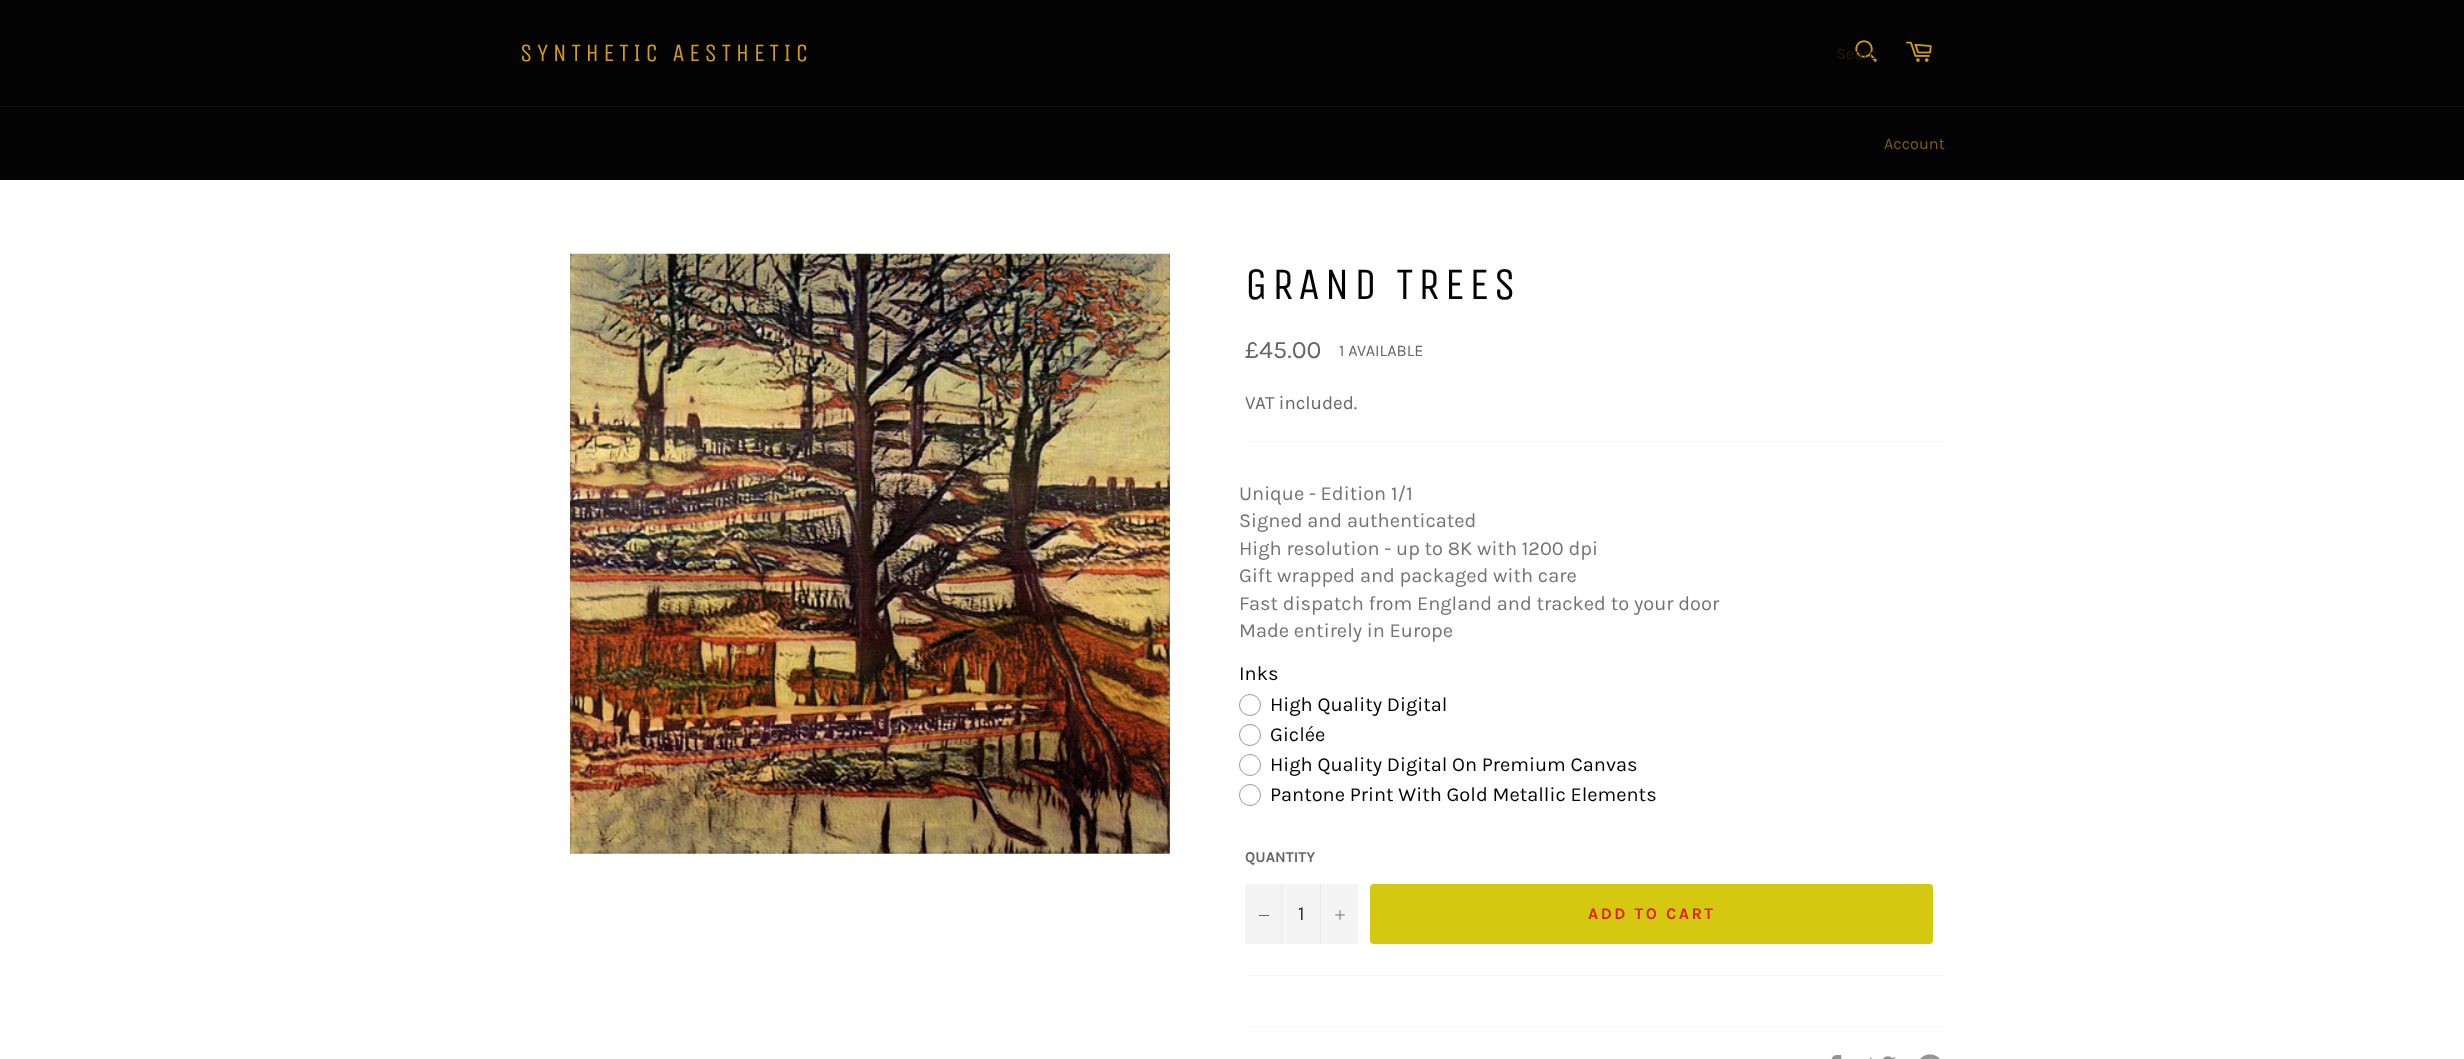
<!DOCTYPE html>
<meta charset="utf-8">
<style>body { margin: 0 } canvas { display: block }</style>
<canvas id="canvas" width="2464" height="1059"></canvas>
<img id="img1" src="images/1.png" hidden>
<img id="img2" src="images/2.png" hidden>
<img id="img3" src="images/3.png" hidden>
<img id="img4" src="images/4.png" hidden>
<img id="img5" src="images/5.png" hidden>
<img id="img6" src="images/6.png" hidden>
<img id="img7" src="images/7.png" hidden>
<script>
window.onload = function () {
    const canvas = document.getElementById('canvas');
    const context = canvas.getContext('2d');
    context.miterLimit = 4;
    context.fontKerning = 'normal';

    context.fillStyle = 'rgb(3, 3, 3)';
    context.fillRect(0, 0, 2464, 1059);
    context.drawImage(document.getElementById('img1'), 1855, 40, 22, 22);
    context.drawImage(document.getElementById('img2'), 1906, 41, 26, 21);
    context.fillStyle = 'rgb(16, 16, 16)';
    context.fillRect(0, 106, 2464, 1);
    context.fillStyle = 'rgb(255, 255, 255)';
    context.fillRect(0, 180, 2464, 879);
    context.drawImage(document.getElementById('img3'), 570, 253, 600, 601);
    context.fillStyle = 'rgb(247, 247, 247)';
    context.fillRect(1245, 441, 700, 1);
    context.beginPath();
    context.arc(1250, 705, 10.5, 0, 2 * Math.PI);
    context.strokeStyle = 'rgb(154, 154, 154)';
    context.stroke();
    context.beginPath();
    context.arc(1250, 735, 10.5, 0, 2 * Math.PI);
    context.stroke();
    context.beginPath();
    context.arc(1250, 765, 10.5, 0, 2 * Math.PI);
    context.stroke();
    context.beginPath();
    context.arc(1250, 795, 10.5, 0, 2 * Math.PI);
    context.stroke();
    context.fillStyle = 'rgb(244, 244, 244)';
    context.fillRect(1245, 884, 113, 60);
    context.fillStyle = 'rgb(231, 231, 231)';
    context.fillRect(1281, 884, 1, 60);
    context.fillStyle = 'rgb(102, 102, 102)';
    context.fillRect(1259, 915, 10, 1);
    context.fillStyle = 'rgb(231, 231, 231)';
    context.fillRect(1320, 884, 1, 60);
    context.drawImage(document.getElementById('img4'), 1335, 910, 10, 10);
    context.fillStyle = 'rgb(212, 200, 17)';
    context.beginPath();
    context.roundRect(1370, 884, 563, 60, 4);
    context.fill();
    context.fillStyle = 'rgb(247, 247, 247)';
    context.fillRect(1245, 975, 700, 1);
    context.fillRect(1245, 1026, 700, 1);
    context.drawImage(document.getElementById('img5'), 1831, 1055, 11, 4);
    context.drawImage(document.getElementById('img6'), 1870, 1056, 26, 3);
    context.drawImage(document.getElementById('img7'), 1920, 1054, 20, 5);
    context.letterSpacing = '4.5px';
    context.font = '25px Unica One';
    context.fillStyle = 'rgb(212, 157, 17)';
    context.fillText('SYNTHETIC AESTHETIC', 520, 61);
    context.save();
    context.beginPath();
    context.rect(1836, 44, 40, 19);
    context.clip();
    context.letterSpacing = '0px';
    context.font = '16.25px Karla';
    context.fillStyle = 'rgb(38, 29, 5)';
    context.fillText('Searc', 1836, 59);
    context.restore();
    context.letterSpacing = '0px';
    context.font = '16.25px Karla';
    context.fillStyle = 'rgb(128, 95, 11)';
    context.fillText('Account', 1884, 149);
    context.letterSpacing = '4.5px';
    context.font = '45px Unica One';
    context.fillStyle = 'rgb(3, 3, 3)';
    context.fillText('GRAND TREES', 1245, 299);
    context.letterSpacing = '0px';
    context.font = '25px Karla';
    context.fillStyle = 'rgb(102, 102, 102)';
    context.fillText('£45.00', 1245, 358);
    context.font = '16.25px Karla';
    context.fillText('1 AVAILABLE', 1339, 356);
    context.font = '18.75px Karla';
    context.fillText('VAT included.', 1245, 409);
    context.font = '20px Karla';
    context.fillStyle = 'rgb(115, 115, 115)';
    context.fillText('Unique - Edition 1/1', 1239, 500);
    context.fillText('Signed and authenticated', 1239, 527);
    context.fillText('High resolution - up to 8K with 1200 dpi', 1239, 555);
    context.fillText('Gift wrapped and packaged with care', 1239, 582);
    context.fillText('Fast dispatch from England and tracked to your door', 1239, 610);
    context.fillText('Made entirely in Europe', 1239, 637);
    context.fillStyle = 'rgb(3, 3, 3)';
    context.fillText('Inks', 1239, 680);
    context.fillText('High Quality Digital', 1270, 711);
    context.fillText('Giclée', 1270, 741);
    context.fillText('High Quality Digital On Premium Canvas', 1270, 771);
    context.fillText('Pantone Print With Gold Metallic Elements', 1270, 801);
    context.font = 'bold 15px Karla';
    context.fillStyle = 'rgb(102, 102, 102)';
    context.fillText('QUANTITY', 1245, 862);
    context.font = '20px Karla';
    context.fillStyle = 'rgb(51, 51, 51)';
    context.fillText('1', 1298, 920);
    context.letterSpacing = '2.5px';
    context.font = 'bold 16.25px Karla';
    context.fillStyle = 'rgb(226, 32, 32)';
    context.fillText('ADD TO CART', 1588, 919);
};
</script>
